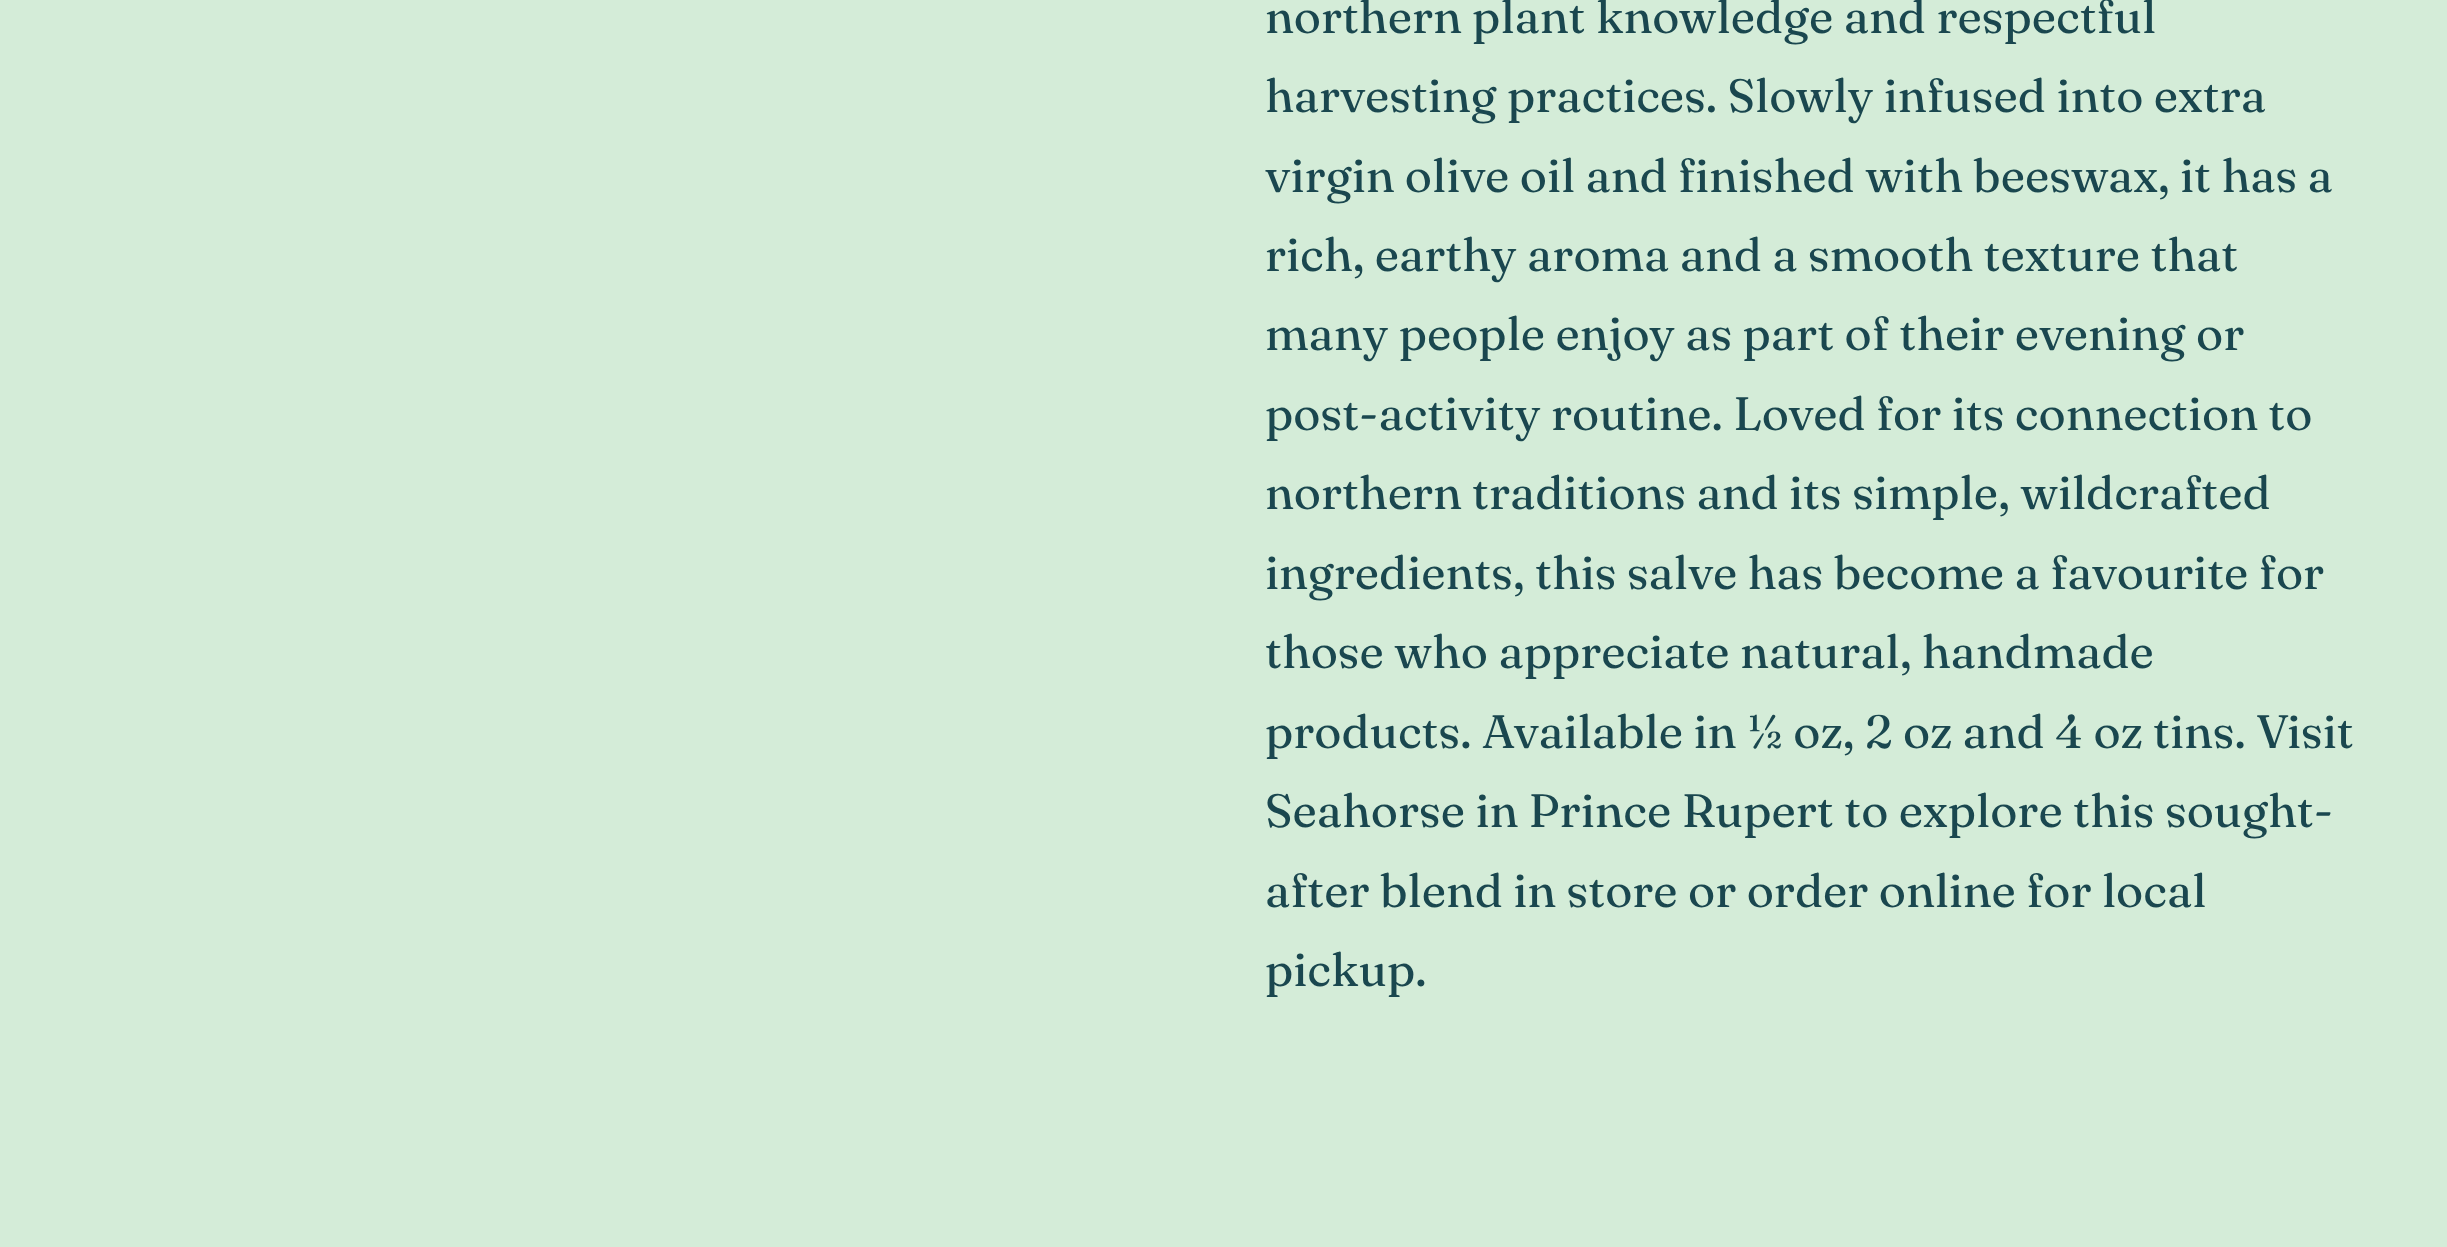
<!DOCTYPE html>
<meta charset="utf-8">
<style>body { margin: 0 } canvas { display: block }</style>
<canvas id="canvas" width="2447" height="1247"></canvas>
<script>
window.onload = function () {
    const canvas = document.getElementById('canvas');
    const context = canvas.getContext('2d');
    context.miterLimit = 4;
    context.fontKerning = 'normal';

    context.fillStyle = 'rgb(212, 236, 216)';
    context.fillRect(0, 0, 2447, 1247);
    context.font = '46.75px Fraunces';
    context.fillStyle = 'rgb(26, 71, 79)';
    context.fillText('northern plant knowledge and respectful', 1265, 33);
    context.fillText('harvesting practices. Slowly infused into extra', 1265, 112);
    context.fillText('virgin olive oil and finished with beeswax, it has a', 1265, 192);
    context.fillText('rich, earthy aroma and a smooth texture that', 1265, 271);
    context.fillText('many people enjoy as part of their evening or', 1265, 350);
    context.fillText('post-activity routine. Loved for its connection to', 1265, 430);
    context.fillText('northern traditions and its simple, wildcrafted', 1265, 509);
    context.fillText('ingredients, this salve has become a favourite for', 1265, 589);
    context.fillText('those who appreciate natural, handmade', 1265, 668);
    context.fillText('products. Available in ½ oz, 2 oz and 4 oz tins. Visit', 1265, 748);
    context.fillText('Seahorse in Prince Rupert to explore this sought-', 1265, 827);
    context.fillText('after blend in store or order online for local', 1265, 907);
    context.fillText('pickup.', 1265, 986);
};
</script>
